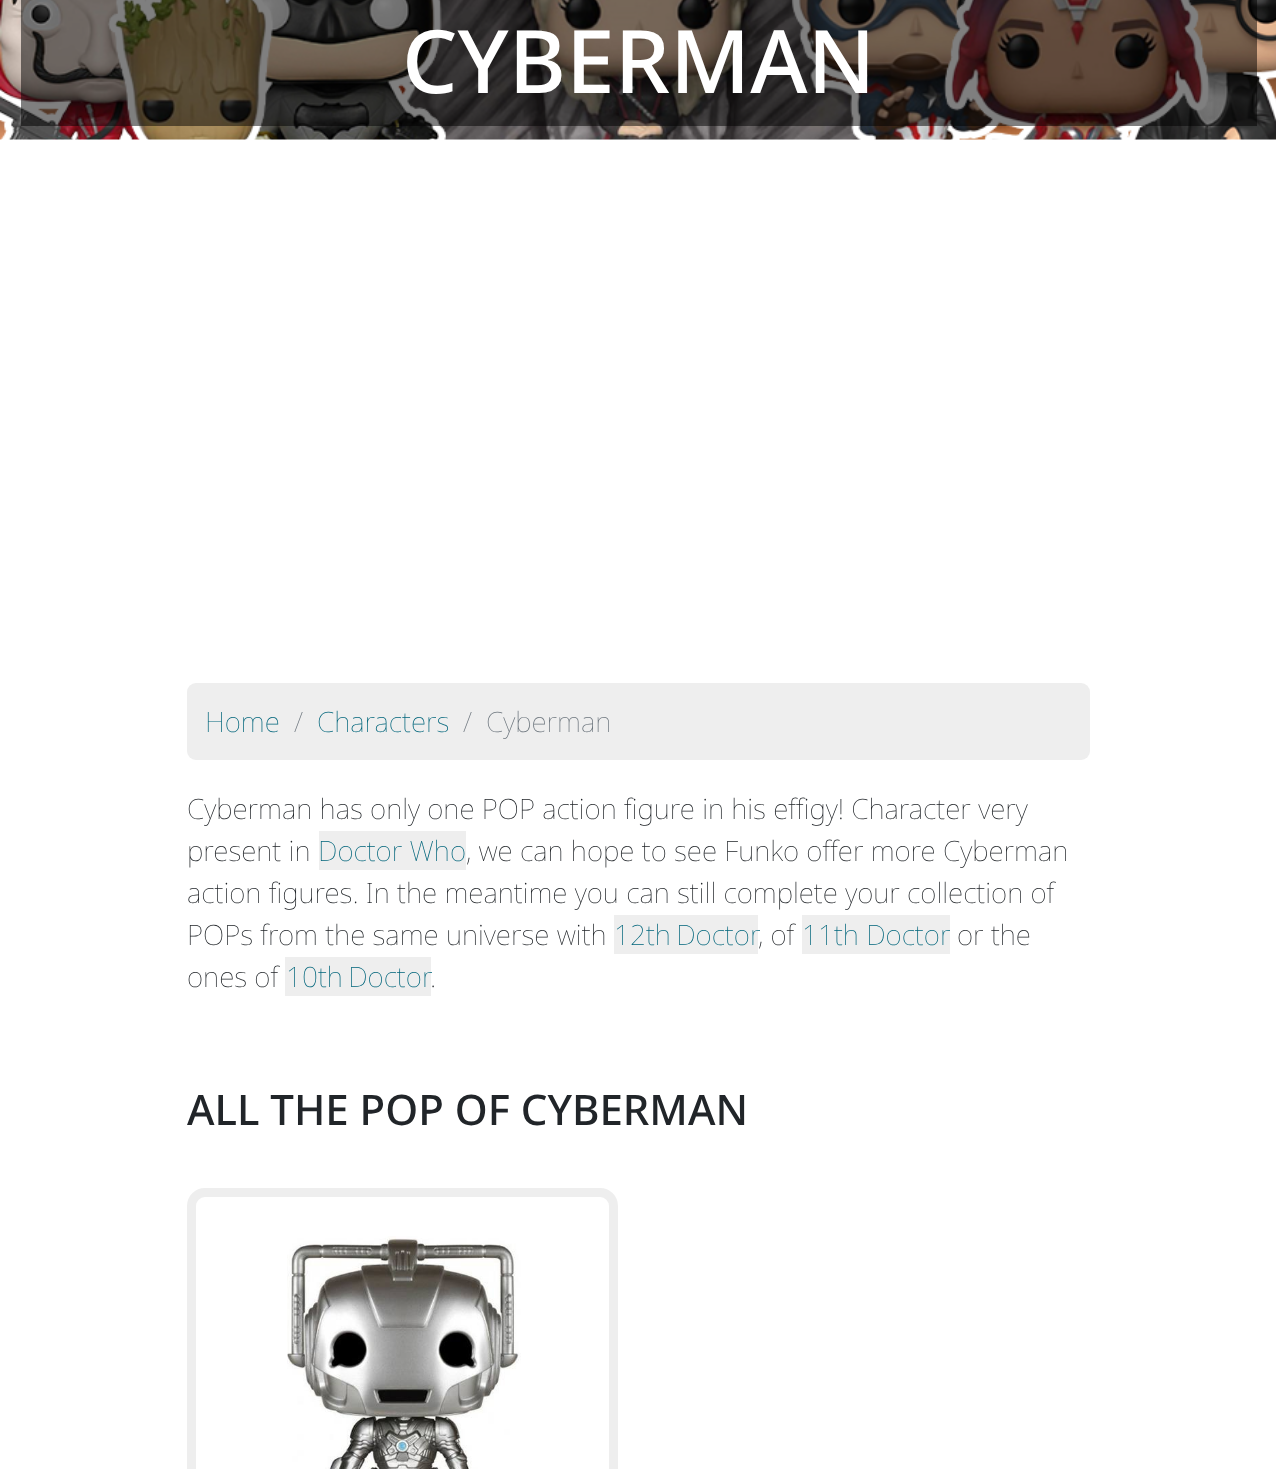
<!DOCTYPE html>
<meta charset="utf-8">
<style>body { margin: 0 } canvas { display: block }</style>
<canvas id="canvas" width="1276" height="1469"></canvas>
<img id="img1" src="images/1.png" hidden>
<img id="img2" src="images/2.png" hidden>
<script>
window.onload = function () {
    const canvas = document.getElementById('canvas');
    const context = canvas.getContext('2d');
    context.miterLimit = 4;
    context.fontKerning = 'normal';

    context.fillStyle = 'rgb(255, 255, 255)';
    context.fillRect(0, 0, 1276, 1469);
    context.drawImage(document.getElementById('img1'), 0, 0, 1276, 140);
    context.fillStyle = 'rgba(0, 0, 0, 0.5)';
    context.fillRect(21, 0, 1236, 126);
    context.fillStyle = 'rgb(238, 238, 238)';
    context.beginPath();
    context.roundRect(187, 683, 903, 77, 9);
    context.fill();
    context.fillRect(319, 831, 147, 39);
    context.fillRect(614, 915, 144, 39);
    context.fillRect(802, 915, 148, 39);
    context.fillRect(285, 957, 146, 39);
    context.beginPath();
    context.roundRect(191.5, 1192.5, 422, 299, 13.5);
    context.strokeStyle = 'rgb(238, 238, 238)';
    context.lineWidth = 9;
    context.stroke();
    context.drawImage(document.getElementById('img2'), 287, 1236, 234, 233);
    context.font = '500 87.5px Noto Sans';
    context.fillStyle = 'rgb(255, 255, 255)';
    context.fillText('CYBERMAN', 402, 93);
    context.font = '100 28px Noto Sans';
    context.fillStyle = 'rgb(0, 101, 123)';
    context.fillText('Home', 205, 732);
    context.fillStyle = 'rgb(108, 117, 125)';
    context.fillText('/', 294, 732);
    context.fillStyle = 'rgb(0, 101, 123)';
    context.fillText('Characters', 317, 732);
    context.fillStyle = 'rgb(108, 117, 125)';
    context.fillText('/', 463, 732);
    context.fillText('Cyberman', 486, 732);
    context.fillStyle = 'rgb(33, 37, 41)';
    context.fillText('Cyberman has only one POP action figure in his effigy! Character very', 187, 819);
    context.fillText('present in', 187, 861);
    context.fillStyle = 'rgb(0, 101, 123)';
    context.fillText('Doctor Who', 318, 861);
    context.fillStyle = 'rgb(33, 37, 41)';
    context.fillText(', we can hope to see Funko offer more Cyberman', 466, 861);
    context.fillText('action figures. In the meantime you can still complete your collection of', 187, 903);
    context.fillText('POPs from the same universe with', 187, 945);
    context.wordSpacing = '-2px';
    context.fillStyle = 'rgb(0, 101, 123)';
    context.fillText('12th Doctor', 614, 945);
    context.wordSpacing = '0px';
    context.fillStyle = 'rgb(33, 37, 41)';
    context.fillText(', of', 758, 945);
    context.fillStyle = 'rgb(0, 101, 123)';
    context.fillText('11th Doctor', 802, 945);
    context.fillStyle = 'rgb(33, 37, 41)';
    context.fillText('or the', 957, 945);
    context.fillText('ones of', 187, 987);
    context.wordSpacing = '-2px';
    context.fillStyle = 'rgb(0, 101, 123)';
    context.fillText('10th Doctor', 286, 987);
    context.wordSpacing = '0px';
    context.fillStyle = 'rgb(33, 37, 41)';
    context.fillText('.', 430, 987);
    context.font = '500 42px Noto Sans';
    context.fillText('ALL THE POP OF CYBERMAN', 187, 1125);
};
</script>
